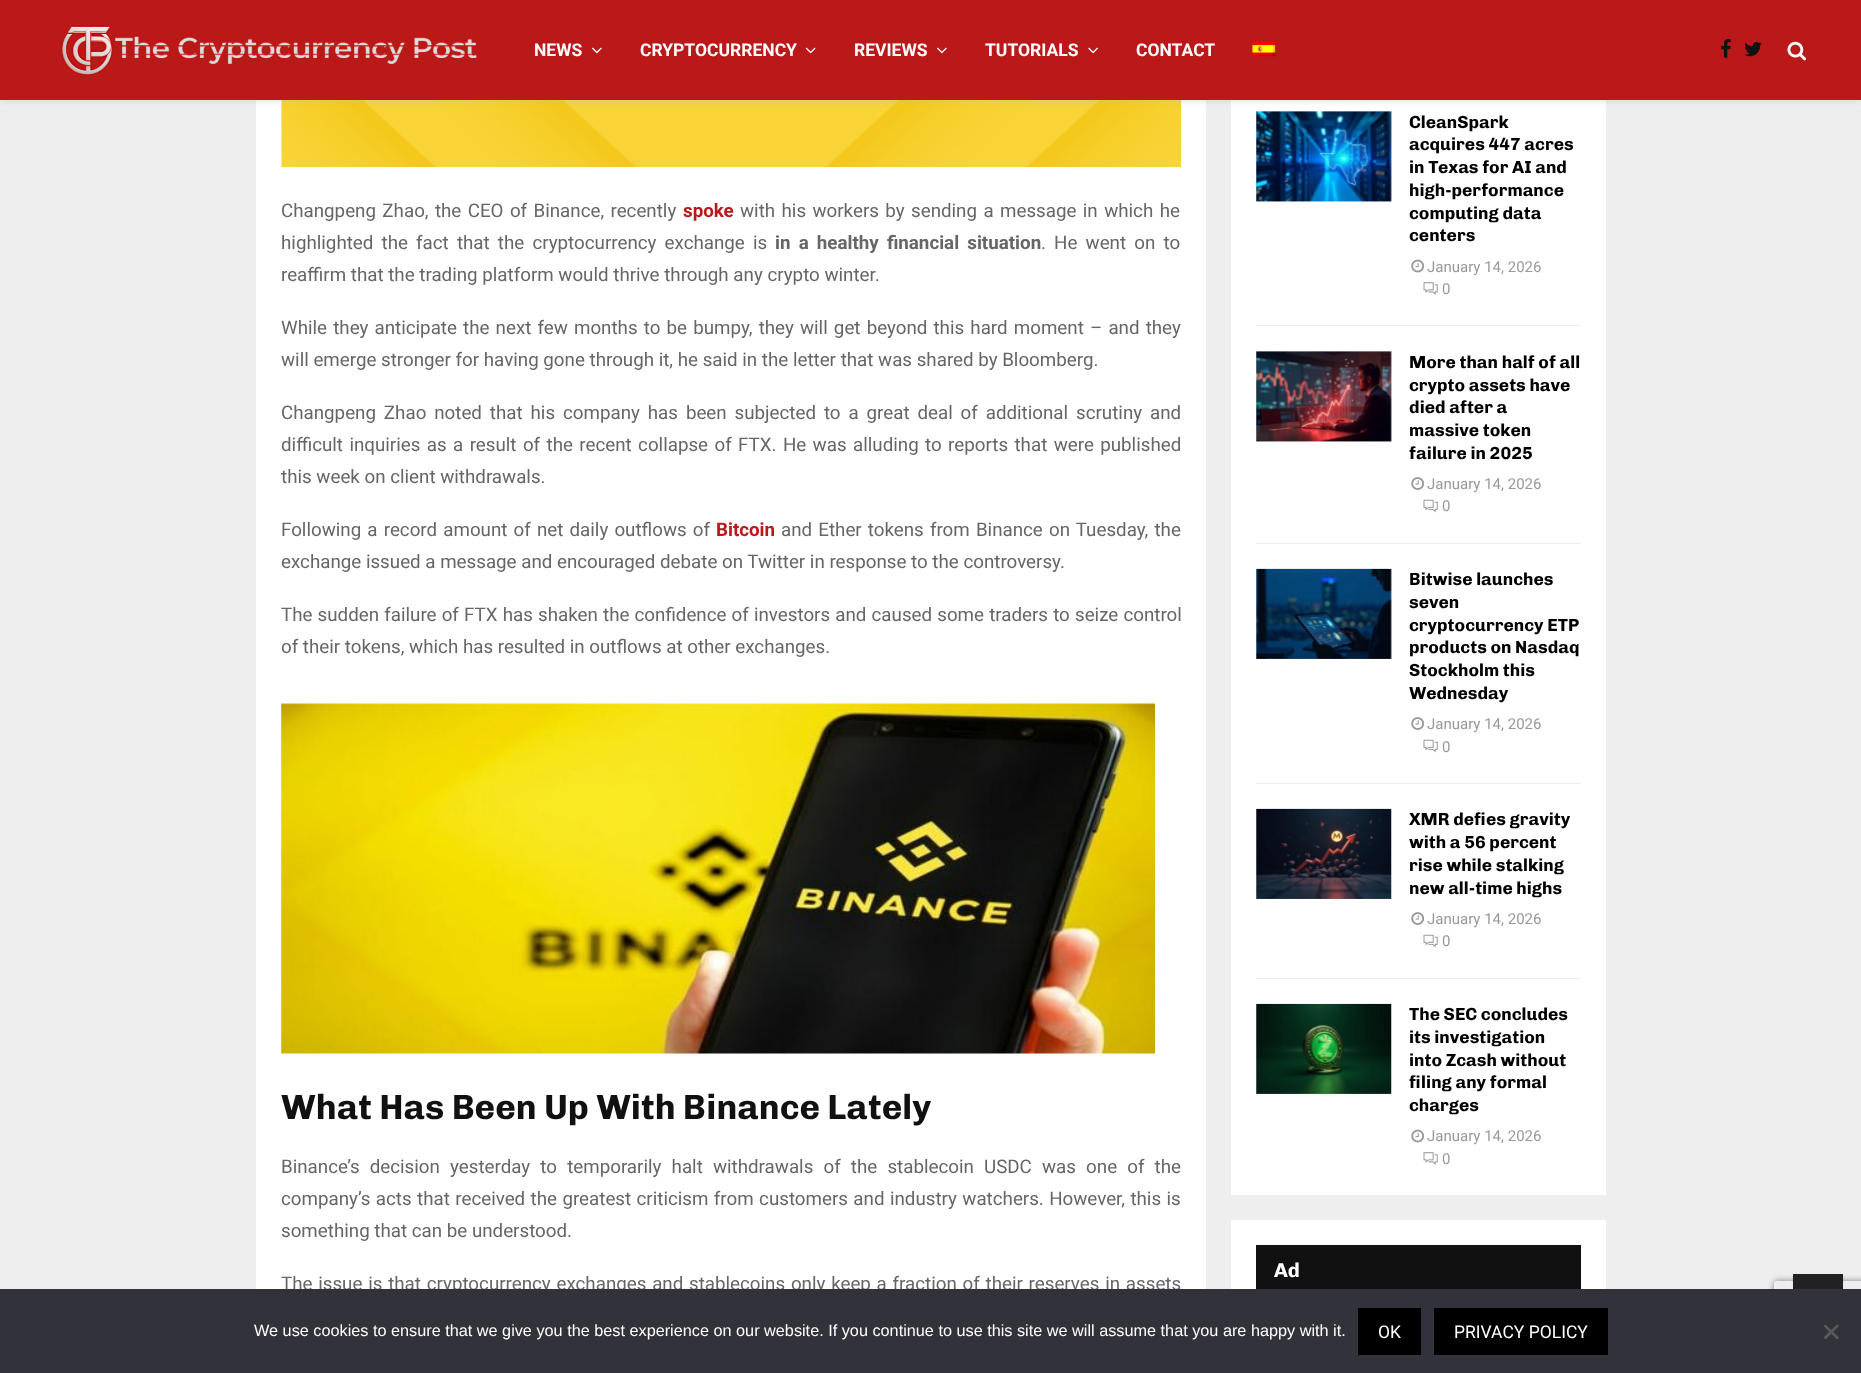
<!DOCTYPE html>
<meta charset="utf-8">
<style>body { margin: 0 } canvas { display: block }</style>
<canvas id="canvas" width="1861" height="1373"></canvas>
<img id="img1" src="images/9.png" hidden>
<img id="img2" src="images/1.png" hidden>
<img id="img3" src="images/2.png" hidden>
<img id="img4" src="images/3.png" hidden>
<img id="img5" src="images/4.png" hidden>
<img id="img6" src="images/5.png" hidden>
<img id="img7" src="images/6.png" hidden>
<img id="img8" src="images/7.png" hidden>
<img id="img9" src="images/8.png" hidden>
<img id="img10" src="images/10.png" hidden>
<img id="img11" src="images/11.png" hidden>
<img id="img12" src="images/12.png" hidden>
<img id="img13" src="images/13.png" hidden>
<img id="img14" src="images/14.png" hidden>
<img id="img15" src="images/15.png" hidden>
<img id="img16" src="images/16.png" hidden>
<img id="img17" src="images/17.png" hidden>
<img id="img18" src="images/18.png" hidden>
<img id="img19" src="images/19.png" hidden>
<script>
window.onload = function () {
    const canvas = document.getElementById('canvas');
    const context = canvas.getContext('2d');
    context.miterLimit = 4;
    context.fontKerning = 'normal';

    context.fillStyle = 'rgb(238, 238, 238)';
    context.fillRect(0, 0, 1861, 1373);
    context.fillStyle = 'rgb(255, 255, 255)';
    context.fillRect(256, 100, 950, 1189);
    context.drawImage(document.getElementById('img1'), 281, 100, 901, 68);
    context.fillRect(1231, 100, 375, 1095);
    context.fillStyle = 'rgba(190, 190, 190, 0.46)';
    context.filter = 'blur(3px)';
    context.beginPath();
    context.rect(0, 1, 1861, 100);
    context.fill();
    context.filter = 'none';
    context.fillStyle = 'rgb(187, 25, 25)';
    context.fillRect(0, 0, 1861, 100);
    context.drawImage(document.getElementById('img2'), 61, 25, 416, 51);
    context.drawImage(document.getElementById('img3'), 592, 47, 10, 7);
    context.drawImage(document.getElementById('img4'), 805, 47, 11, 7);
    context.drawImage(document.getElementById('img3'), 937, 47, 10, 7);
    context.drawImage(document.getElementById('img5'), 1088, 47, 10, 7);
    context.drawImage(document.getElementById('img6'), 1252, 41, 24, 16);
    context.drawImage(document.getElementById('img7'), 1721, 39, 10, 19);
    context.drawImage(document.getElementById('img8'), 1744, 42, 18, 15);
    context.drawImage(document.getElementById('img9'), 1787, 41, 19, 20);
    context.drawImage(document.getElementById('img10'), 281, 703, 874, 351);
    context.fillStyle = 'rgb(236, 236, 236)';
    context.fillRect(1256, 325, 325, 1);
    context.fillStyle = 'rgb(245, 245, 245)';
    context.fillRect(1256, 111, 135, 90);
    context.drawImage(document.getElementById('img11'), 1256, 111, 136, 91);
    context.drawImage(document.getElementById('img12'), 1411, 259, 14, 14);
    context.drawImage(document.getElementById('img13'), 1423, 282, 15, 13);
    context.fillStyle = 'rgb(236, 236, 236)';
    context.fillRect(1256, 543, 325, 1);
    context.fillStyle = 'rgb(245, 245, 245)';
    context.fillRect(1256, 351, 135, 90);
    context.drawImage(document.getElementById('img14'), 1256, 351, 136, 91);
    context.drawImage(document.getElementById('img15'), 1411, 477, 14, 13);
    context.drawImage(document.getElementById('img16'), 1423, 499, 15, 14);
    context.fillStyle = 'rgb(236, 236, 236)';
    context.fillRect(1256, 783, 325, 1);
    context.drawImage(document.getElementById('img17'), 1256, 568, 136, 91);
    context.drawImage(document.getElementById('img15'), 1411, 717, 14, 13);
    context.drawImage(document.getElementById('img16'), 1423, 739, 15, 14);
    context.fillRect(1256, 978, 325, 1);
    context.drawImage(document.getElementById('img18'), 1256, 808, 136, 91);
    context.drawImage(document.getElementById('img15'), 1411, 912, 14, 13);
    context.drawImage(document.getElementById('img16'), 1423, 934, 15, 14);
    context.fillStyle = 'rgb(245, 245, 245)';
    context.fillRect(1256, 1004, 135, 90);
    context.drawImage(document.getElementById('img19'), 1256, 1003, 136, 91);
    context.drawImage(document.getElementById('img12'), 1411, 1129, 14, 14);
    context.drawImage(document.getElementById('img13'), 1423, 1152, 15, 13);
    context.fillStyle = 'rgb(255, 255, 255)';
    context.fillRect(1231, 1220, 375, 69);
    context.fillStyle = 'rgb(17, 17, 17)';
    context.fillRect(1256, 1245, 325, 44);
    context.save();
    context.beginPath();
    context.moveTo(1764, 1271);
    context.lineTo(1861, 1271);
    context.lineTo(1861, 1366);
    context.lineTo(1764, 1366);
    context.closePath();
    context.moveTo(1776.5, 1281);
    context.lineTo(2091.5, 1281);
    context.bezierCurveTo(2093, 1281, 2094, 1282, 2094, 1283.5);
    context.lineTo(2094, 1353.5);
    context.bezierCurveTo(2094, 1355, 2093, 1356, 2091.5, 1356);
    context.lineTo(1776.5, 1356);
    context.bezierCurveTo(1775, 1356, 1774, 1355, 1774, 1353.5);
    context.lineTo(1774, 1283.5);
    context.bezierCurveTo(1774, 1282, 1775, 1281, 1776.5, 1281);
    context.closePath();
    context.clip('evenodd');
    context.fillStyle = 'rgb(128, 128, 128)';
    context.filter = 'blur(3px)';
    context.beginPath();
    context.roundRect(1774, 1281, 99, 75, 2.5);
    context.fill();
    context.filter = 'none';
    context.restore();
    context.fillStyle = 'rgba(0, 0, 0, 0.1)';
    context.filter = 'blur(1px)';
    context.beginPath();
    context.rect(1793, 1275, 50, 50);
    context.fill();
    context.filter = 'none';
    context.fillStyle = 'rgb(33, 33, 33)';
    context.fillRect(1793, 1274, 50, 15);
    context.font = 'bold 17.5px Roboto';
    context.fillStyle = 'rgb(255, 255, 255)';
    context.fillText('NEWS', 534, 56);
    context.fillText('CRYPTOCURRENCY', 640, 56);
    context.fillText('REVIEWS', 854, 56);
    context.fillText('TUTORIALS', 985, 56);
    context.fillText('CONTACT', 1136, 56);
    context.wordSpacing = '1.75px';
    context.font = '18.75px Roboto';
    context.fillStyle = 'rgb(102, 102, 102)';
    context.fillText('Changpeng Zhao, the CEO of Binance, recently', 281, 217);
    context.wordSpacing = '0px';
    context.font = 'bold 18.75px Roboto';
    context.fillStyle = 'rgb(187, 25, 25)';
    context.fillText('spoke', 683, 217);
    context.wordSpacing = '1.75px';
    context.font = '18.75px Roboto';
    context.fillStyle = 'rgb(102, 102, 102)';
    context.fillText('with his workers by sending a message in which he', 740, 217);
    context.wordSpacing = '3.5px';
    context.fillText('highlighted the fact that the cryptocurrency exchange is', 281, 249);
    context.font = 'bold 18.75px Roboto';
    context.fillText('in a healthy financial situation', 775, 249);
    context.font = '18.75px Roboto';
    context.fillText('. He went on to', 1041, 249);
    context.wordSpacing = '0px';
    context.fillText('reaffirm that the trading platform would thrive through any crypto winter.', 281, 281);
    context.wordSpacing = '1.5px';
    context.fillText('While they anticipate the next few months to be bumpy, they will get beyond this hard moment – and they', 281, 334);
    context.wordSpacing = '0px';
    context.fillText('will emerge stronger for having gone through it, he said in the letter that was shared by Bloomberg.', 281, 366);
    context.wordSpacing = '3.25px';
    context.fillText('Changpeng Zhao noted that his company has been subjected to a great deal of additional scrutiny and', 281, 419);
    context.wordSpacing = '1.75px';
    context.fillText('difficult inquiries as a result of the recent collapse of FTX. He was alluding to reports that were published', 281, 451);
    context.wordSpacing = '0px';
    context.fillText('this week on client withdrawals.', 281, 483);
    context.wordSpacing = '1.5px';
    context.fillText('Following a record amount of net daily outflows of', 281, 536);
    context.wordSpacing = '0px';
    context.font = 'bold 18.75px Roboto';
    context.fillStyle = 'rgb(187, 25, 25)';
    context.fillText('Bitcoin', 716, 536);
    context.wordSpacing = '1.5px';
    context.font = '18.75px Roboto';
    context.fillStyle = 'rgb(102, 102, 102)';
    context.fillText('and Ether tokens from Binance on Tuesday, the', 781, 536);
    context.wordSpacing = '0px';
    context.fillText('exchange issued a message and encouraged debate on Twitter in response to the controversy.', 281, 568);
    context.wordSpacing = '0.5px';
    context.fillText('The sudden failure of FTX has shaken the confidence of investors and caused some traders to seize control', 281, 621);
    context.wordSpacing = '0px';
    context.fillText('of their tokens, which has resulted in outflows at other exchanges.', 281, 653);
    context.font = 'bold 35px Chivo';
    context.fillStyle = 'rgb(17, 17, 17)';
    context.fillText('What Has Been Up With Binance Lately', 281, 1119);
    context.wordSpacing = '5.5px';
    context.font = '18.75px Roboto';
    context.fillStyle = 'rgb(102, 102, 102)';
    context.fillText('Binance’s decision yesterday to temporarily halt withdrawals of the stablecoin USDC was one of the', 281, 1173);
    context.wordSpacing = '0.75px';
    context.fillText('company’s acts that received the greatest criticism from customers and industry watchers. However, this is', 281, 1205);
    context.wordSpacing = '0px';
    context.fillText('something that can be understood.', 281, 1237);
    context.wordSpacing = '1.1px';
    context.fillText('The issue is that cryptocurrency exchanges and stablecoins only keep a fraction of their reserves in assets', 281, 1290);
    context.wordSpacing = '0px';
    context.font = 'bold 17.5px Chivo';
    context.fillStyle = 'rgb(0, 0, 0)';
    context.fillText('CleanSpark', 1409, 128);
    context.fillText('acquires 447 acres', 1409, 150);
    context.fillText('in Texas for AI and', 1409, 173);
    context.fillText('high-performance', 1409, 196);
    context.fillText('computing data', 1409, 219);
    context.fillText('centers', 1409, 241);
    context.font = '15px Roboto';
    context.fillStyle = 'rgb(153, 153, 153)';
    context.fillText('January 14, 2026', 1427, 272);
    context.fillText('0', 1442, 294);
    context.font = 'bold 17.5px Chivo';
    context.fillStyle = 'rgb(0, 0, 0)';
    context.fillText('More than half of all', 1409, 368);
    context.fillText('crypto assets have', 1409, 391);
    context.fillText('died after a', 1409, 413);
    context.fillText('massive token', 1409, 436);
    context.fillText('failure in 2025', 1409, 459);
    context.font = '15px Roboto';
    context.fillStyle = 'rgb(153, 153, 153)';
    context.fillText('January 14, 2026', 1427, 489);
    context.fillText('0', 1442, 511);
    context.font = 'bold 17.5px Chivo';
    context.fillStyle = 'rgb(0, 0, 0)';
    context.fillText('Bitwise launches', 1409, 585);
    context.fillText('seven', 1409, 608);
    context.fillText('cryptocurrency ETP', 1409, 631);
    context.fillText('products on Nasdaq', 1409, 653);
    context.fillText('Stockholm this', 1409, 676);
    context.fillText('Wednesday', 1409, 699);
    context.font = '15px Roboto';
    context.fillStyle = 'rgb(153, 153, 153)';
    context.fillText('January 14, 2026', 1427, 729);
    context.fillText('0', 1442, 752);
    context.font = 'bold 17.5px Chivo';
    context.fillStyle = 'rgb(0, 0, 0)';
    context.fillText('XMR defies gravity', 1409, 825);
    context.fillText('with a 56 percent', 1409, 848);
    context.fillText('rise while stalking', 1409, 871);
    context.fillText('new all-time highs', 1409, 894);
    context.font = '15px Roboto';
    context.fillStyle = 'rgb(153, 153, 153)';
    context.fillText('January 14, 2026', 1427, 924);
    context.fillText('0', 1442, 946);
    context.font = 'bold 17.5px Chivo';
    context.fillStyle = 'rgb(0, 0, 0)';
    context.fillText('The SEC concludes', 1409, 1020);
    context.fillText('its investigation', 1409, 1043);
    context.fillText('into Zcash without', 1409, 1066);
    context.fillText('filing any formal', 1409, 1088);
    context.fillText('charges', 1409, 1111);
    context.font = '15px Roboto';
    context.fillStyle = 'rgb(153, 153, 153)';
    context.fillText('January 14, 2026', 1427, 1141);
    context.fillText('0', 1442, 1164);
    context.font = 'bold 20px Chivo';
    context.fillStyle = 'rgb(255, 255, 255)';
    context.fillText('Ad', 1274, 1277);
    context.fillStyle = 'rgb(50, 50, 58)';
    context.fillRect(0, 1289, 1861, 84);
    context.font = '16.25px Liberation Sans';
    context.fillStyle = 'rgb(255, 255, 255)';
    context.fillText('We use cookies to ensure that we give you the best experience on our website. If you continue to use this site we will assume that you are happy with it.', 254, 1336);
    context.fillStyle = 'rgb(0, 0, 0)';
    context.fillRect(1358, 1308, 63, 47);
    context.font = '17.5px Roboto';
    context.fillStyle = 'rgb(255, 255, 255)';
    context.fillText('OK', 1378, 1338);
    context.fillStyle = 'rgb(0, 0, 0)';
    context.fillRect(1434, 1308, 174, 47);
    context.fillStyle = 'rgb(255, 255, 255)';
    context.fillText('PRIVACY POLICY', 1454, 1338);
    context.fillStyle = 'rgb(89, 89, 93)';
    context.beginPath();
    context.moveTo(1837, 1324.5);
    context.lineTo(1839, 1326);
    context.lineTo(1825.5, 1339.5);
    context.lineTo(1823.5, 1337.5);
    context.closePath();
    context.fill();
    context.beginPath();
    context.moveTo(1823.5, 1326);
    context.lineTo(1825.5, 1324.5);
    context.lineTo(1839, 1337.5);
    context.lineTo(1837, 1339.5);
    context.closePath();
    context.fill();
};
</script>
